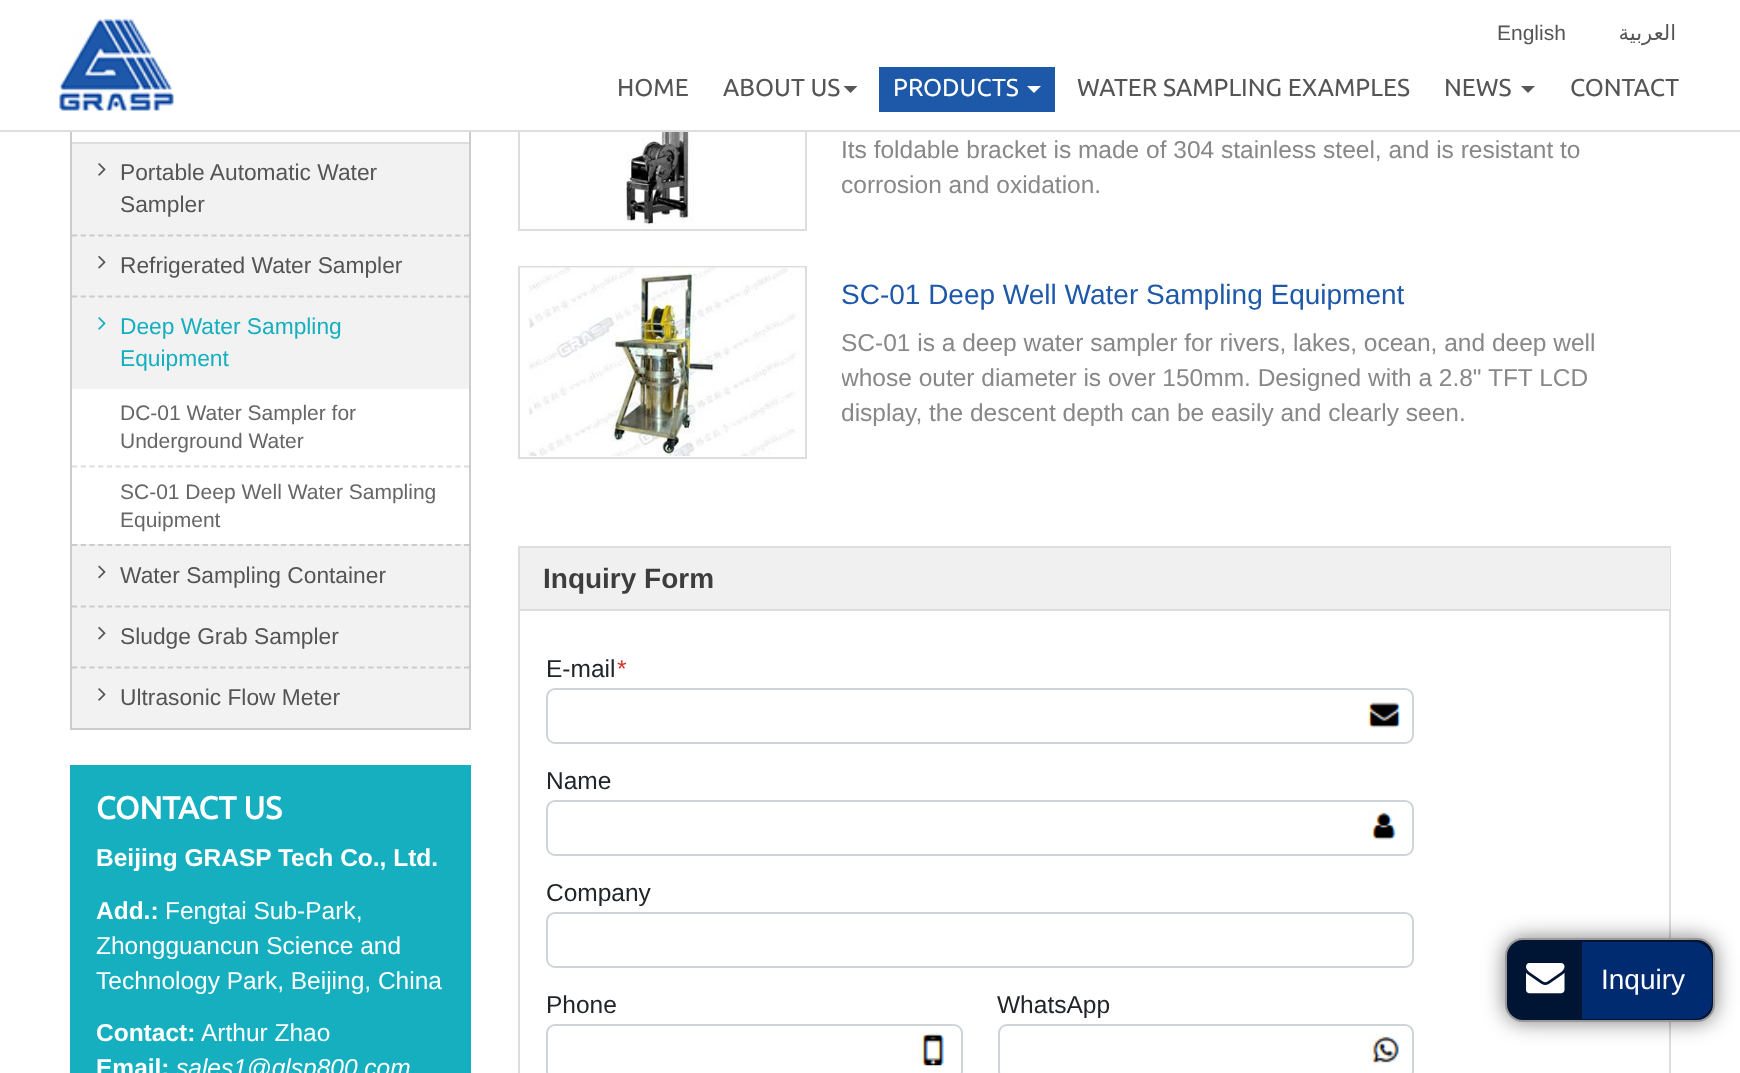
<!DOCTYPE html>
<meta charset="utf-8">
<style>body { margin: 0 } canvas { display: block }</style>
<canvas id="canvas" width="1740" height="1073"></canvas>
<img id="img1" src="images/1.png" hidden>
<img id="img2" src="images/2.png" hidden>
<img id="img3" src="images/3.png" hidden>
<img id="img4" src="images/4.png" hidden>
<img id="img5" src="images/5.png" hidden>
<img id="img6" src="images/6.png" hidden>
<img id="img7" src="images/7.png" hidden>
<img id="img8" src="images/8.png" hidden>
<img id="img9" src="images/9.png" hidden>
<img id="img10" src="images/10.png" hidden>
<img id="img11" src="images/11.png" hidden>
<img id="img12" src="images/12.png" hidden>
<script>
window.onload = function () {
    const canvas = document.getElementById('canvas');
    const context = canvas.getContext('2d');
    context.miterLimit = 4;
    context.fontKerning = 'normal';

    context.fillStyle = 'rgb(255, 255, 255)';
    context.fillRect(0, 0, 1740, 1073);
    context.strokeStyle = 'rgb(204, 204, 204)';
    context.lineWidth = 2;
    context.strokeRect(71, 68, 399, 661);
    context.strokeStyle = 'rgb(221, 221, 221)';
    context.strokeRect(519, 38, 287, 192);
    context.fillRect(70, 37, 737, 93);
    context.fillStyle = 'rgb(221, 221, 221)';
    context.fillRect(0, 130, 1740, 2);
    context.drawImage(document.getElementById('img1'), 59, 18, 115, 93);
    context.fillStyle = 'rgb(87, 87, 87)';
    context.beginPath();
    context.moveTo(843.5, 86);
    context.lineTo(857.5, 86);
    context.lineTo(850.5, 93);
    context.closePath();
    context.fill();
    context.fillStyle = 'rgb(30, 88, 169)';
    context.fillRect(879, 67, 176, 45);
    context.fillStyle = 'rgb(255, 255, 255)';
    context.beginPath();
    context.moveTo(1027, 86);
    context.lineTo(1041, 86);
    context.lineTo(1034, 93);
    context.closePath();
    context.fill();
    context.fillStyle = 'rgb(87, 87, 87)';
    context.beginPath();
    context.moveTo(1521, 86);
    context.lineTo(1535, 86);
    context.lineTo(1528, 93);
    context.closePath();
    context.fill();
    context.fillStyle = 'rgb(221, 221, 221)';
    context.fillRect(72, 142, 397, 2);
    context.fillStyle = 'rgb(242, 242, 242)';
    context.fillRect(72, 144, 397, 245);
    context.drawImage(document.getElementById('img2'), 98, 163, 8, 13);
    context.beginPath();
    context.moveTo(72, 235.5);
    context.lineTo(469, 235.5);
    context.strokeStyle = 'rgb(204, 204, 204)';
    context.lineWidth = 1.8;
    context.setLineDash([5.25, 3.46]);
    context.stroke();
    context.drawImage(document.getElementById('img3'), 98, 255, 8, 14);
    context.beginPath();
    context.moveTo(72, 296.5);
    context.lineTo(469, 296.5);
    context.stroke();
    context.drawImage(document.getElementById('img4'), 98, 317, 8, 13);
    context.beginPath();
    context.moveTo(72, 466.5);
    context.lineTo(469, 466.5);
    context.strokeStyle = 'rgb(221, 221, 221)';
    context.stroke();
    context.fillRect(72, 544, 397, 184);
    context.beginPath();
    context.moveTo(72, 545);
    context.lineTo(469, 545);
    context.strokeStyle = 'rgb(204, 204, 204)';
    context.stroke();
    context.drawImage(document.getElementById('img5'), 98, 565, 8, 14);
    context.beginPath();
    context.moveTo(72, 606.5);
    context.lineTo(469, 606.5);
    context.stroke();
    context.drawImage(document.getElementById('img3'), 98, 626, 8, 14);
    context.beginPath();
    context.moveTo(72, 667.5);
    context.lineTo(469, 667.5);
    context.stroke();
    context.drawImage(document.getElementById('img2'), 98, 688, 8, 13);
    context.fillStyle = 'rgb(21, 175, 191)';
    context.fillRect(70, 765, 401, 308);
    context.drawImage(document.getElementById('img6'), 520, 132, 285, 97);
    context.strokeStyle = 'rgb(221, 221, 221)';
    context.lineWidth = 2;
    context.setLineDash([]);
    context.strokeRect(519, 267, 287, 191);
    context.drawImage(document.getElementById('img7'), 520, 267, 285, 189);
    context.strokeRect(519, 547, 1151, 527);
    context.fillStyle = 'rgb(240, 240, 240)';
    context.fillRect(520, 548, 1150, 61);
    context.fillStyle = 'rgb(221, 221, 221)';
    context.fillRect(520, 609, 1150, 2);
    context.beginPath();
    context.roundRect(547, 689, 866, 54, 8);
    context.strokeStyle = 'rgb(206, 212, 218)';
    context.stroke();
    context.drawImage(document.getElementById('img8'), 1368, 698, 32, 30);
    context.beginPath();
    context.roundRect(547, 801, 866, 54, 8);
    context.stroke();
    context.drawImage(document.getElementById('img9'), 1368, 810, 28, 31);
    context.beginPath();
    context.roundRect(547, 913, 866, 54, 8);
    context.stroke();
    context.beginPath();
    context.roundRect(547, 1025, 415, 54, 8);
    context.stroke();
    context.drawImage(document.getElementById('img10'), 917, 1033, 28, 33);
    context.beginPath();
    context.roundRect(999, 1025, 414, 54, 8);
    context.stroke();
    context.drawImage(document.getElementById('img11'), 1368, 1034, 31, 30);
    context.fillStyle = 'rgba(0, 0, 0, 0.5)';
    context.filter = 'blur(10.5px)';
    context.beginPath();
    context.roundRect(1505, 938, 210, 84, 18);
    context.fill();
    context.filter = 'none';
    context.fillStyle = 'rgb(0, 20, 52)';
    context.beginPath();
    context.roundRect(1506, 939, 208, 82, 17);
    context.fill();
    context.strokeStyle = 'rgb(153, 153, 153)';
    context.stroke();
    context.drawImage(document.getElementById('img12'), 1526, 963, 39, 31);
    context.fillStyle = 'rgb(0, 43, 112)';
    context.beginPath();
    context.roundRect(1582, 942, 130, 77, [0, 18, 18, 0]);
    context.fill();
    context.font = '21px Liberation Sans';
    context.fillStyle = 'rgb(85, 85, 85)';
    context.fillText('English', 1497, 40);
    context.direction = 'rtl';
    context.font = '21px DejaVu Sans';
    context.fillText('العربية', 1676, 40);
    context.direction = 'ltr';
    context.font = '24.5px Ubuntu';
    context.fillText('HOME', 617, 96);
    context.fillText('ABOUT US', 723, 96);
    context.fillStyle = 'rgb(255, 255, 255)';
    context.fillText('PRODUCTS', 893, 96);
    context.fillStyle = 'rgb(85, 85, 85)';
    context.fillText('WATER SAMPLING EXAMPLES', 1077, 96);
    context.fillText('NEWS', 1444, 96);
    context.fillText('CONTACT', 1570, 96);
    context.font = '22.75px Liberation Sans';
    context.fillText('Portable Automatic Water', 120, 180);
    context.fillText('Sampler', 120, 212);
    context.fillText('Refrigerated Water Sampler', 120, 273);
    context.fillStyle = 'rgb(21, 175, 191)';
    context.fillText('Deep Water Sampling', 120, 334);
    context.fillText('Equipment', 120, 366);
    context.font = '21px Liberation Sans';
    context.fillStyle = 'rgb(102, 102, 102)';
    context.fillText('DC-01 Water Sampler for', 120, 420);
    context.fillText('Underground Water', 120, 448);
    context.fillText('SC-01 Deep Well Water Sampling', 120, 499);
    context.fillText('Equipment', 120, 527);
    context.font = '22.75px Liberation Sans';
    context.fillStyle = 'rgb(85, 85, 85)';
    context.fillText('Water Sampling Container', 120, 583);
    context.fillText('Sludge Grab Sampler', 120, 644);
    context.fillText('Ultrasonic Flow Meter', 120, 705);
    context.font = 'bold 31.5px Ubuntu';
    context.fillStyle = 'rgb(255, 255, 255)';
    context.fillText('CONTACT US', 96, 819);
    context.font = 'bold 24.5px Liberation Sans';
    context.fillText('Beijing GRASP Tech Co., Ltd.', 96, 866);
    context.fillText('Add.:', 96, 919);
    context.font = '24.5px Liberation Sans';
    context.fillText('Fengtai Sub-Park,', 165, 919);
    context.fillText('Zhongguancun Science and', 96, 954);
    context.fillText('Technology Park, Beijing, China', 96, 989);
    context.font = 'bold 24.5px Liberation Sans';
    context.fillText('Contact:', 96, 1041);
    context.font = '24.5px Liberation Sans';
    context.fillText('Arthur Zhao', 201, 1041);
    context.font = 'bold 24.5px Liberation Sans';
    context.fillText('Email:', 96, 1076);
    context.font = 'italic 24.5px Liberation Sans';
    context.fillText('sales1@glsp800.com', 176, 1076);
    context.font = '24.5px Liberation Sans';
    context.fillStyle = 'rgb(136, 136, 136)';
    context.fillText('Its foldable bracket is made of 304 stainless steel, and is resistant to', 841, 158);
    context.fillText('corrosion and oxidation.', 841, 193);
    context.font = '28px Liberation Sans';
    context.fillStyle = 'rgb(30, 88, 169)';
    context.fillText('SC-01 Deep Well Water Sampling Equipment', 841, 304);
    context.font = '24.5px Liberation Sans';
    context.fillStyle = 'rgb(136, 136, 136)';
    context.fillText('SC-01 is a deep water sampler for rivers, lakes, ocean, and deep well', 841, 351);
    context.save();
    context.beginPath();
    context.rect(842, 266, 829, 165);
    context.clip();
    context.fillText('whose outer diameter is over 150mm. Designed with a 2.8" TFT LCD', 841, 386);
    context.restore();
    context.fillText('display, the descent depth can be easily and clearly seen.', 841, 421);
    context.font = 'bold 28px Liberation Sans';
    context.fillStyle = 'rgb(61, 61, 61)';
    context.fillText('Inquiry Form', 543, 588);
    context.font = '24.5px Liberation Sans';
    context.fillStyle = 'rgb(33, 37, 41)';
    context.fillText('E-mail', 546, 677);
    context.font = 'italic 24.5px Liberation Sans';
    context.fillStyle = 'rgb(206, 53, 44)';
    context.fillText('*', 616, 677);
    context.font = '24.5px Liberation Sans';
    context.fillStyle = 'rgb(33, 37, 41)';
    context.fillText('Name', 546, 789);
    context.fillText('Company', 546, 901);
    context.fillText('Phone', 546, 1013);
    context.fillText('WhatsApp', 997, 1013);
    context.font = '28px Liberation Sans';
    context.fillStyle = 'rgb(255, 255, 255)';
    context.fillText('Inquiry', 1601, 989);
};
</script>
